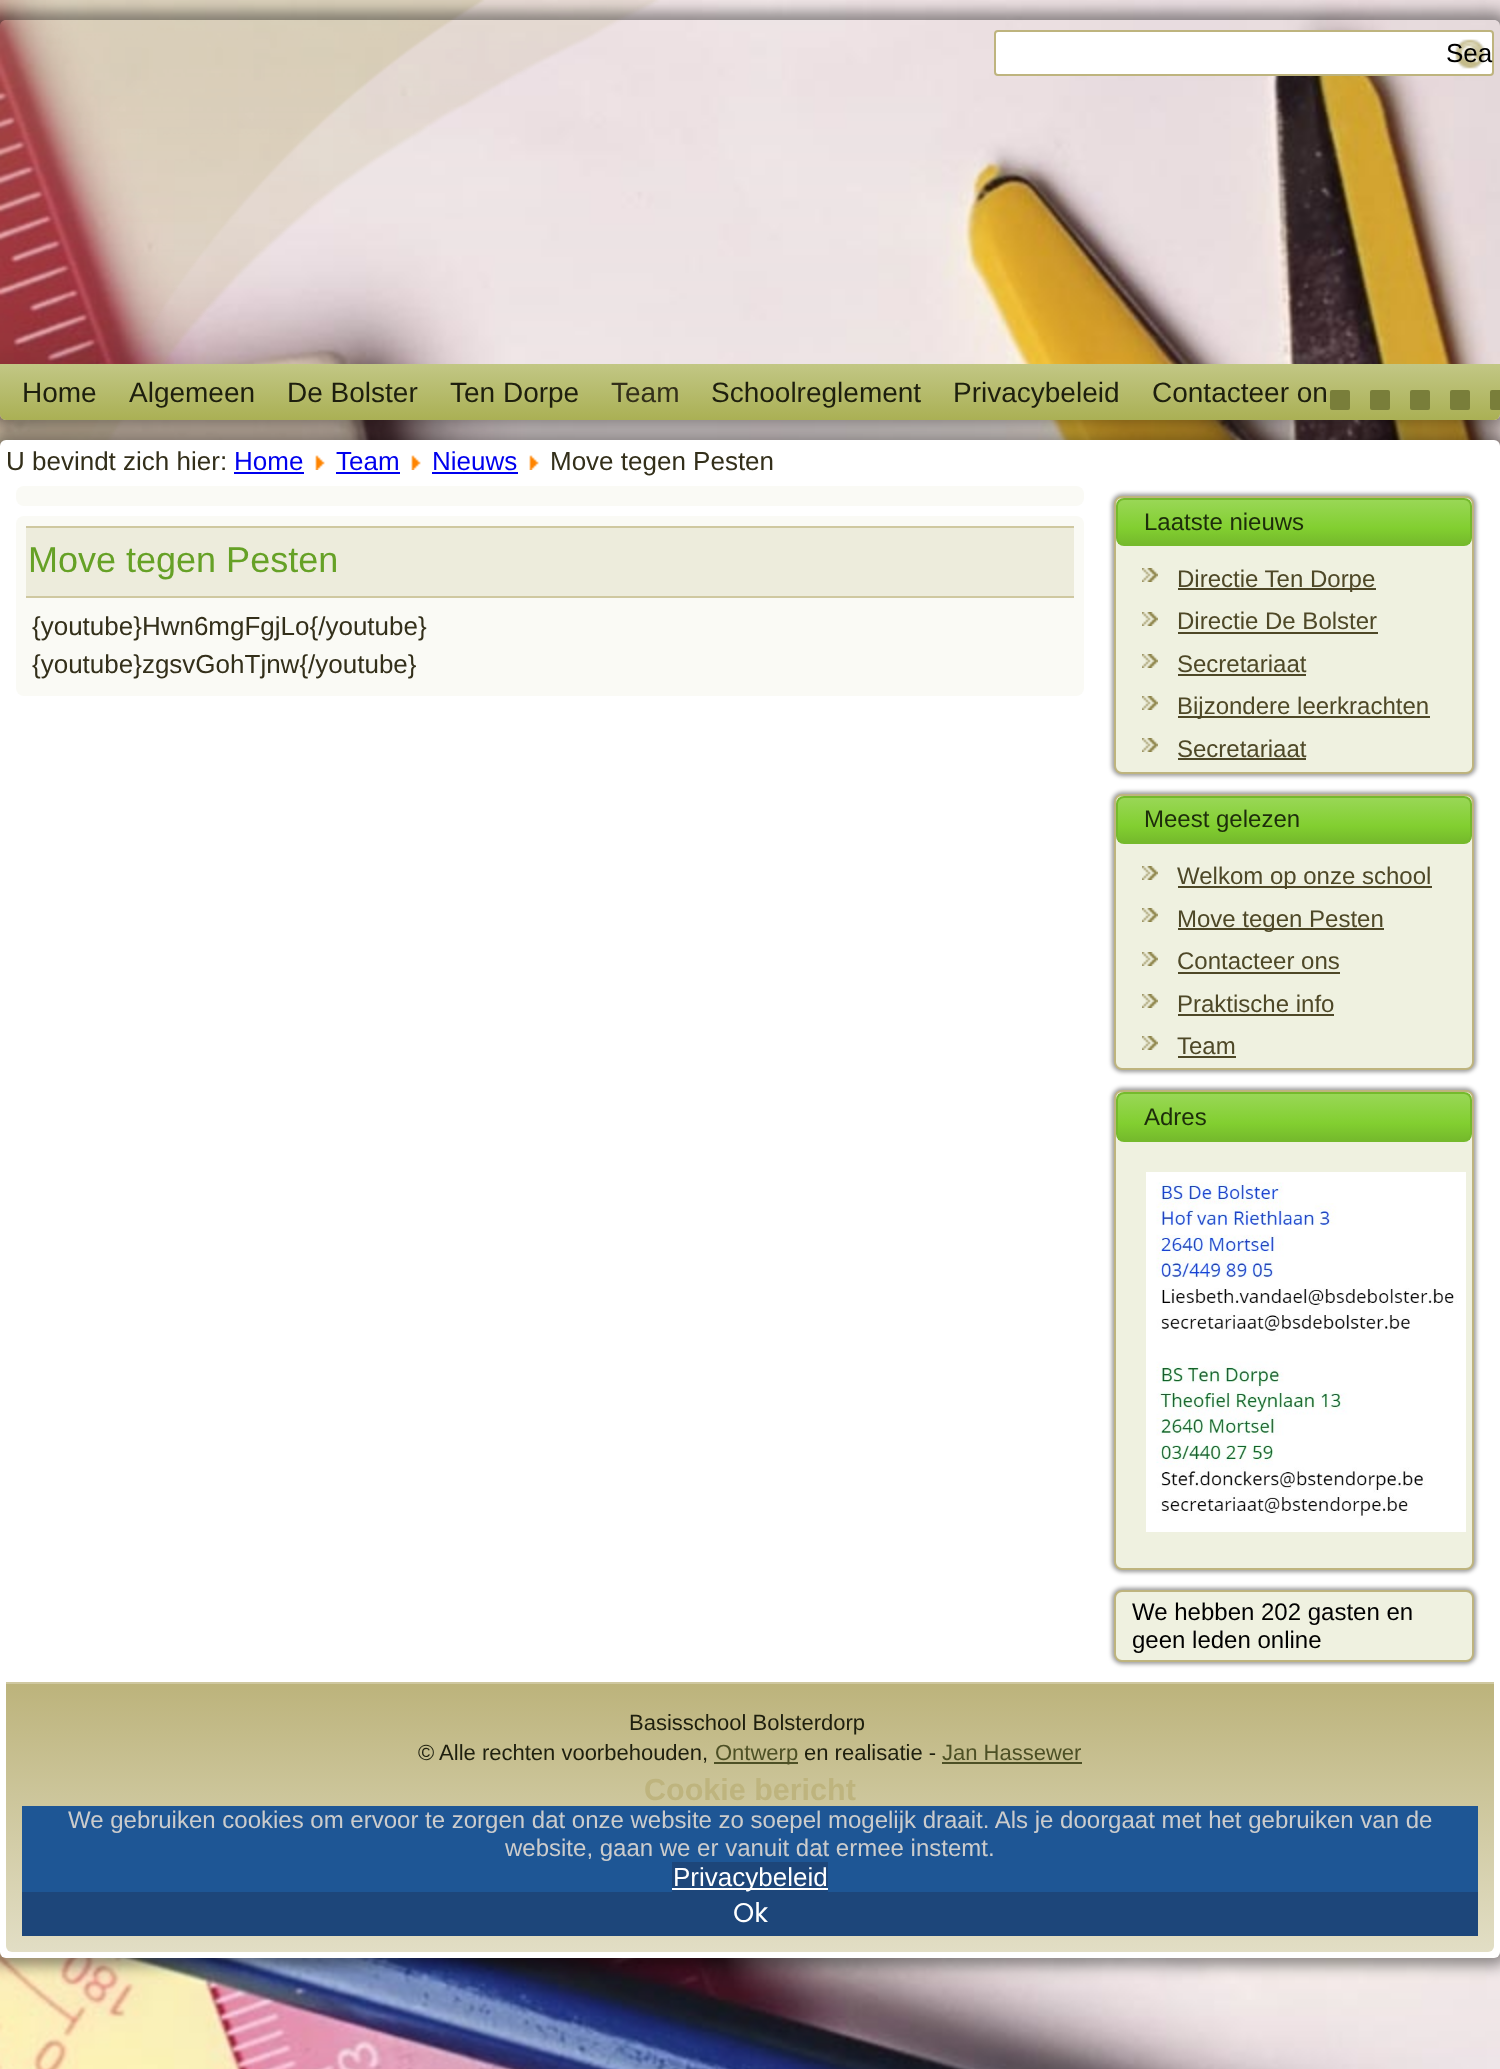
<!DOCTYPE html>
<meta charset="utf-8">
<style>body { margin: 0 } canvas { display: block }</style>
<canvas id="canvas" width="1500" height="2069"></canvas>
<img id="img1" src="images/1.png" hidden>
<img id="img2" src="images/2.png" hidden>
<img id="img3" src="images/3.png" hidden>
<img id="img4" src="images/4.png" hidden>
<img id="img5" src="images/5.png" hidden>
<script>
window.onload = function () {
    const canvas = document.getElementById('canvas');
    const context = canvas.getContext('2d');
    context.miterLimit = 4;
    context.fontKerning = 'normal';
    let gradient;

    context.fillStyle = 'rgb(255, 255, 255)';
    context.fillRect(0, 0, 1500, 2069);
    context.drawImage(document.getElementById('img1'), 0, 0, 1500, 2069);
    context.save();
    context.beginPath();
    context.moveTo(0, 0);
    context.lineTo(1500, 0);
    context.lineTo(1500, 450);
    context.lineTo(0, 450);
    context.closePath();
    context.moveTo(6, 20);
    context.lineTo(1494, 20);
    context.bezierCurveTo(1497.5, 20, 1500, 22.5, 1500, 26);
    context.lineTo(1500, 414);
    context.bezierCurveTo(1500, 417.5, 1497.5, 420, 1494, 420);
    context.lineTo(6, 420);
    context.bezierCurveTo(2.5, 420, 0, 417.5, 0, 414);
    context.lineTo(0, 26);
    context.bezierCurveTo(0, 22.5, 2.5, 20, 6, 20);
    context.closePath();
    context.clip('evenodd');
    context.fillStyle = 'rgba(0, 0, 0, 0.4)';
    context.filter = 'blur(7px)';
    context.beginPath();
    context.roundRect(-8, 12, 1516, 416, 14);
    context.fill();
    context.filter = 'none';
    context.restore();
    context.beginPath();
    context.roundRect(995, 31, 498, 44, 3);
    context.fill();
    context.strokeStyle = 'rgb(190, 180, 126)';
    context.lineWidth = 2;
    context.stroke();
    context.drawImage(document.getElementById('img2'), 1455, 39, 30, 30);
    context.fillStyle = 'rgba(0, 0, 0, 0.4)';
    context.filter = 'blur(7px)';
    context.beginPath();
    context.roundRect(-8, 432, 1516, 1534, 14);
    context.fill();
    context.filter = 'none';
    gradient = context.createLinearGradient(750, 364, 750, 420);
    gradient.addColorStop(0, 'rgb(194, 199, 133)');
    gradient.addColorStop(1, 'rgb(170, 176, 84)');
    context.fillStyle = gradient;
    context.beginPath();
    context.roundRect(0, 364, 1500, 56, [0, 0, 6, 6]);
    context.fill();
    context.fillStyle = 'rgb(121, 126, 58)';
    context.beginPath();
    context.roundRect(1330, 390, 20, 20, 2);
    context.fill();
    context.beginPath();
    context.roundRect(1370, 390, 20, 20, 2);
    context.fill();
    context.beginPath();
    context.roundRect(1410, 390, 20, 20, 2);
    context.fill();
    context.beginPath();
    context.roundRect(1450, 390, 20, 20, 2);
    context.fill();
    context.beginPath();
    context.roundRect(1490, 390, 10, 20, [2, 0, 0, 2]);
    context.fill();
    context.fillStyle = 'rgb(255, 255, 255)';
    context.beginPath();
    context.roundRect(0, 440, 1500, 1518, 6);
    context.fill();
    context.fillStyle = 'rgb(0, 0, 238)';
    context.fillRect(234, 472, 70, 2);
    context.drawImage(document.getElementById('img3'), 315, 455, 10, 15);
    context.fillRect(336, 472, 64, 2);
    context.drawImage(document.getElementById('img3'), 411, 455, 10, 15);
    context.fillRect(432, 472, 86, 2);
    context.drawImage(document.getElementById('img3'), 529, 455, 10, 15);
    context.fillStyle = 'rgb(250, 250, 245)';
    context.beginPath();
    context.roundRect(16, 486, 1068, 20, 8);
    context.fill();
    context.beginPath();
    context.roundRect(16, 516, 1068, 180, 8);
    context.fill();
    context.fillStyle = 'rgb(237, 236, 220)';
    context.fillRect(26, 528, 1048, 68);
    context.fillStyle = 'rgb(207, 200, 160)';
    context.fillRect(26, 526, 1048, 2);
    context.fillRect(26, 596, 1048, 2);
    context.fillStyle = 'rgba(0, 0, 0, 0.4)';
    context.filter = 'blur(2px)';
    context.beginPath();
    context.roundRect(1112, 494, 364, 282, 10);
    context.fill();
    context.filter = 'none';
    context.fillStyle = 'rgb(239, 241, 224)';
    context.beginPath();
    context.roundRect(1115, 497, 358, 276, 7);
    context.fill();
    context.stroke();
    context.save();
    context.beginPath();
    context.roundRect(1116, 498, 356, 48, 8);
    context.clip();
    gradient = context.createLinearGradient(1294, 500, 1294, 544);
    gradient.addColorStop(0, 'rgb(153, 215, 86)');
    gradient.addColorStop(0.64, 'rgb(130, 207, 48)');
    gradient.addColorStop(1, 'rgb(117, 186, 44)');
    context.fillStyle = gradient;
    context.fillRect(1118, 500, 352, 44);
    context.restore();
    context.beginPath();
    context.roundRect(1117, 499, 354, 46, 7);
    context.strokeStyle = 'rgb(117, 186, 44)';
    context.stroke();
    context.drawImage(document.getElementById('img4'), 1142, 568, 16, 14);
    context.fillStyle = 'rgb(78, 72, 39)';
    context.fillRect(1178, 588, 198, 2);
    context.drawImage(document.getElementById('img4'), 1142, 612, 16, 14);
    context.fillRect(1178, 632, 200, 2);
    context.drawImage(document.getElementById('img4'), 1142, 654, 16, 14);
    context.fillRect(1178, 674, 128, 2);
    context.drawImage(document.getElementById('img4'), 1142, 696, 16, 14);
    context.fillRect(1178, 716, 252, 2);
    context.drawImage(document.getElementById('img4'), 1142, 738, 16, 14);
    context.fillRect(1178, 758, 128, 2);
    context.fillStyle = 'rgba(0, 0, 0, 0.4)';
    context.filter = 'blur(2px)';
    context.beginPath();
    context.roundRect(1112, 792, 364, 280, 10);
    context.fill();
    context.filter = 'none';
    context.fillStyle = 'rgb(239, 241, 224)';
    context.beginPath();
    context.roundRect(1115, 795, 358, 274, 7);
    context.fill();
    context.strokeStyle = 'rgb(190, 180, 126)';
    context.stroke();
    context.save();
    context.beginPath();
    context.roundRect(1116, 796, 356, 48, 8);
    context.clip();
    gradient = context.createLinearGradient(1294, 798, 1294, 842);
    gradient.addColorStop(0, 'rgb(153, 215, 86)');
    gradient.addColorStop(0.64, 'rgb(130, 207, 48)');
    gradient.addColorStop(1, 'rgb(117, 186, 44)');
    context.fillStyle = gradient;
    context.fillRect(1118, 798, 352, 44);
    context.restore();
    context.beginPath();
    context.roundRect(1117, 797, 354, 46, 7);
    context.strokeStyle = 'rgb(117, 186, 44)';
    context.stroke();
    context.drawImage(document.getElementById('img4'), 1142, 866, 16, 14);
    context.fillStyle = 'rgb(78, 72, 39)';
    context.fillRect(1178, 886, 254, 2);
    context.drawImage(document.getElementById('img4'), 1142, 908, 16, 14);
    context.fillRect(1178, 928, 206, 2);
    context.drawImage(document.getElementById('img4'), 1142, 952, 16, 14);
    context.fillRect(1178, 972, 162, 2);
    context.drawImage(document.getElementById('img4'), 1142, 994, 16, 14);
    context.fillRect(1178, 1014, 156, 2);
    context.drawImage(document.getElementById('img4'), 1142, 1036, 16, 14);
    context.fillRect(1178, 1056, 58, 2);
    context.fillStyle = 'rgba(0, 0, 0, 0.4)';
    context.filter = 'blur(2px)';
    context.beginPath();
    context.roundRect(1112, 1088, 364, 484, 10);
    context.fill();
    context.filter = 'none';
    context.fillStyle = 'rgb(239, 241, 224)';
    context.beginPath();
    context.roundRect(1115, 1091, 358, 478, 7);
    context.fill();
    context.strokeStyle = 'rgb(190, 180, 126)';
    context.stroke();
    context.save();
    context.beginPath();
    context.roundRect(1116, 1092, 356, 50, 8);
    context.clip();
    gradient = context.createLinearGradient(1294, 1094, 1294, 1140);
    gradient.addColorStop(0, 'rgb(153, 215, 86)');
    gradient.addColorStop(0.64, 'rgb(130, 207, 48)');
    gradient.addColorStop(1, 'rgb(117, 186, 44)');
    context.fillStyle = gradient;
    context.fillRect(1118, 1094, 352, 46);
    context.restore();
    context.beginPath();
    context.roundRect(1117, 1093, 354, 48, 7);
    context.strokeStyle = 'rgb(117, 186, 44)';
    context.stroke();
    context.drawImage(document.getElementById('img5'), 1146, 1172, 320, 360);
    context.fillStyle = 'rgba(0, 0, 0, 0.4)';
    context.filter = 'blur(2px)';
    context.beginPath();
    context.roundRect(1112, 1588, 364, 76, 10);
    context.fill();
    context.filter = 'none';
    context.fillStyle = 'rgb(239, 241, 224)';
    context.beginPath();
    context.roundRect(1115, 1591, 358, 70, 7);
    context.fill();
    context.strokeStyle = 'rgb(190, 180, 126)';
    context.stroke();
    gradient = context.createLinearGradient(750, 1682, 750, 1952);
    gradient.addColorStop(0, 'rgb(188, 179, 123)');
    gradient.addColorStop(1, 'rgb(226, 222, 197)');
    context.fillStyle = gradient;
    context.beginPath();
    context.roundRect(6, 1682, 1488, 270, [0, 0, 6, 6]);
    context.fill();
    context.fillStyle = 'rgb(207, 200, 160)';
    context.fillRect(6, 1682, 1488, 2);
    context.fillStyle = 'rgb(77, 80, 37)';
    context.fillRect(714, 1762, 84, 2);
    context.fillRect(942, 1762, 140, 2);
    context.fillStyle = 'rgb(30, 86, 149)';
    context.fillRect(22, 1806, 1456, 86);
    context.fillStyle = 'rgb(29, 70, 122)';
    context.fillRect(672, 1862, 156, 30);
    context.fillStyle = 'rgb(255, 255, 255)';
    context.fillRect(672, 1888, 156, 2);
    context.fillStyle = 'rgb(29, 70, 122)';
    context.fillRect(22, 1892, 1456, 44);
    context.font = '26px Liberation Sans';
    context.fillStyle = 'rgb(0, 0, 0)';
    context.fillText('Sea', 1446, 62);
    context.font = '28px Liberation Sans';
    context.fillStyle = 'rgb(30, 31, 14)';
    context.fillText('Home', 22, 402);
    context.fillText('Algemeen', 129, 402);
    context.fillText('De Bolster', 287, 402);
    context.fillText('Ten Dorpe', 450, 402);
    context.fillStyle = 'rgb(51, 47, 26)';
    context.fillText('Team', 611, 402);
    context.fillStyle = 'rgb(30, 31, 14)';
    context.fillText('Schoolreglement', 711, 402);
    context.fillText('Privacybeleid', 953, 402);
    context.fillText('Contacteer on', 1152, 402);
    context.font = '26px Liberation Sans';
    context.fillStyle = 'rgb(51, 47, 26)';
    context.fillText('U bevindt zich hier:', 6, 470);
    context.fillStyle = 'rgb(0, 0, 238)';
    context.fillText('Home', 234, 470);
    context.fillText('Team', 336, 470);
    context.fillText('Nieuws', 432, 470);
    context.fillStyle = 'rgb(51, 47, 26)';
    context.fillText('Move tegen Pesten', 550, 470);
    context.font = '36px Liberation Sans';
    context.fillStyle = 'rgb(102, 161, 38)';
    context.fillText('Move tegen Pesten', 28, 572);
    context.font = '26px Liberation Sans';
    context.fillStyle = 'rgb(51, 47, 26)';
    context.fillText('{youtube}Hwn6mgFgjLo{/youtube}', 32, 635);
    context.fillText('{youtube}zgsvGohTjnw{/youtube}', 32, 673);
    context.font = '24px Liberation Sans';
    context.fillStyle = 'rgb(29, 45, 11)';
    context.fillText('Laatste nieuws', 1144, 530);
    context.fillStyle = 'rgb(78, 72, 39)';
    context.fillText('Directie Ten Dorpe', 1177, 587);
    context.fillText('Directie De Bolster', 1177, 629);
    context.fillText('Secretariaat', 1177, 672);
    context.fillText('Bijzondere leerkrachten', 1177, 714);
    context.fillText('Secretariaat', 1177, 757);
    context.fillStyle = 'rgb(29, 45, 11)';
    context.fillText('Meest gelezen', 1144, 827);
    context.fillStyle = 'rgb(78, 72, 39)';
    context.fillText('Welkom op onze school', 1177, 884);
    context.fillText('Move tegen Pesten', 1177, 927);
    context.fillText('Contacteer ons', 1177, 969);
    context.fillText('Praktische info', 1177, 1012);
    context.fillText('Team', 1177, 1054);
    context.fillStyle = 'rgb(29, 45, 11)';
    context.fillText('Adres', 1144, 1125);
    context.fillStyle = 'rgb(0, 0, 0)';
    context.fillText('We hebben 202 gasten en', 1132, 1620);
    context.fillText('geen leden online', 1132, 1648);
    context.font = '22px Liberation Sans';
    context.fillStyle = 'rgb(30, 31, 14)';
    context.fillText('Basisschool Bolsterdorp', 629, 1730);
    context.fillText('© Alle rechten voorbehouden,', 418, 1760);
    context.fillStyle = 'rgb(77, 80, 37)';
    context.fillText('Ontwerp', 715, 1760);
    context.fillStyle = 'rgb(30, 31, 14)';
    context.fillText('en realisatie -', 804, 1760);
    context.fillStyle = 'rgb(77, 80, 37)';
    context.fillText('Jan Hassewer', 942, 1760);
    context.font = 'bold 30.5px Liberation Sans';
    context.fillStyle = 'rgb(190, 180, 126)';
    context.fillText('Cookie bericht', 644, 1800);
    context.font = '24px Liberation Sans';
    context.fillStyle = 'rgb(204, 204, 204)';
    context.fillText('We gebruiken cookies om ervoor te zorgen dat onze website zo soepel mogelijk draait. Als je doorgaat met het gebruiken van de', 68, 1828);
    context.fillText('website, gaan we er vanuit dat ermee instemt.', 505, 1856);
    context.font = '26px Liberation Sans';
    context.fillStyle = 'rgb(255, 255, 255)';
    context.fillText('Privacybeleid', 673, 1886);
    context.font = '27px Poppins';
    context.fillText('Ok', 733, 1922);
};
</script>
